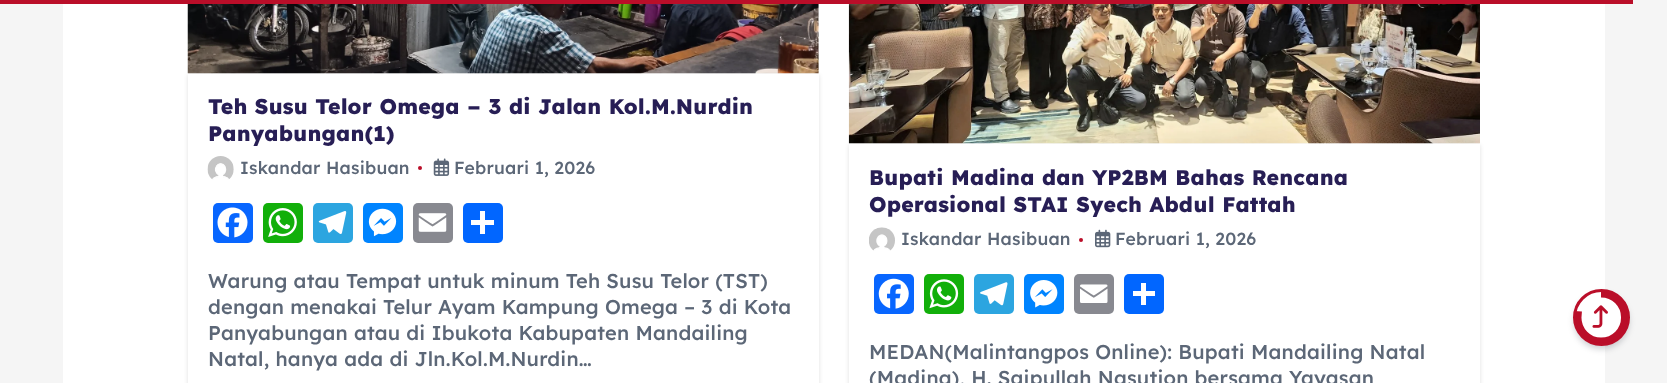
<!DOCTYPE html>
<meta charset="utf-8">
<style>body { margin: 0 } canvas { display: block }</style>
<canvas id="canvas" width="1667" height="383"></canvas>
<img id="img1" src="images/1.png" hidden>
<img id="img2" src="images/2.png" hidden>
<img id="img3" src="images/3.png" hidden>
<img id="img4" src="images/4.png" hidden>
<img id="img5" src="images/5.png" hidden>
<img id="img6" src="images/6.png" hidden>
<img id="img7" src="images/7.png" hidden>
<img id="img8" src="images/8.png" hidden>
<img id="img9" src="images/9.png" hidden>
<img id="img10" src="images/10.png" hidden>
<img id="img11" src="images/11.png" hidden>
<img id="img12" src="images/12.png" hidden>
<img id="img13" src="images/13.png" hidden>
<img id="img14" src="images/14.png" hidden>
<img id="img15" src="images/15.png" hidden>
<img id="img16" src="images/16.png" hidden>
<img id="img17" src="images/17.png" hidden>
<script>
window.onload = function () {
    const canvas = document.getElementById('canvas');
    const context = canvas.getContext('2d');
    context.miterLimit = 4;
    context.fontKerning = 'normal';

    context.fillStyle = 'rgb(245, 245, 245)';
    context.fillRect(0, 0, 1667, 383);
    context.fillStyle = 'rgb(186, 14, 41)';
    context.fillRect(0, 0, 1633, 4);
    context.fillStyle = 'rgb(255, 255, 255)';
    context.fillRect(63, 4, 1542, 379);
    context.fillStyle = 'rgba(0, 0, 0, 0.12)';
    context.filter = 'blur(2px)';
    context.beginPath();
    context.rect(188, 75, 631, 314);
    context.fill();
    context.filter = 'none';
    context.drawImage(document.getElementById('img1'), 187, 4, 632, 70);
    context.fillStyle = 'rgb(255, 255, 255)';
    context.fillRect(188, 74, 631, 309);
    context.drawImage(document.getElementById('img2'), 207, 156, 27, 24);
    context.fillStyle = 'rgb(186, 14, 41)';
    context.beginPath();
    context.arc(420, 168, 2, 0, 2 * Math.PI);
    context.fill();
    context.drawImage(document.getElementById('img3'), 433, 158, 17, 18);
    context.fillStyle = 'rgb(8, 102, 255)';
    context.beginPath();
    context.roundRect(213, 203, 40, 40, 5);
    context.fill();
    context.drawImage(document.getElementById('img4'), 217, 207, 31, 31);
    context.fillStyle = 'rgb(18, 175, 10)';
    context.beginPath();
    context.roundRect(263, 203, 40, 40, 5);
    context.fill();
    context.drawImage(document.getElementById('img5'), 268, 208, 29, 29);
    context.fillStyle = 'rgb(44, 165, 224)';
    context.beginPath();
    context.roundRect(313, 203, 40, 40, 5);
    context.fill();
    context.drawImage(document.getElementById('img6'), 318, 211, 29, 23);
    context.fillStyle = 'rgb(0, 132, 255)';
    context.beginPath();
    context.roundRect(363, 203, 40, 40, 5);
    context.fill();
    context.drawImage(document.getElementById('img7'), 368, 208, 29, 29);
    context.fillStyle = 'rgb(136, 137, 144)';
    context.beginPath();
    context.roundRect(413, 203, 40, 40, 5);
    context.fill();
    context.drawImage(document.getElementById('img8'), 418, 213, 29, 19);
    context.fillStyle = 'rgb(1, 102, 255)';
    context.beginPath();
    context.roundRect(463, 203, 40, 40, 5);
    context.fill();
    context.fillStyle = 'rgb(255, 255, 255)';
    context.fillRect(480, 211, 5, 23);
    context.fillRect(471, 220, 23, 5);
    context.save();
    context.beginPath();
    context.moveTo(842, 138);
    context.lineTo(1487, 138);
    context.lineTo(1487, 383);
    context.lineTo(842, 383);
    context.closePath();
    context.moveTo(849, 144);
    context.lineTo(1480, 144);
    context.lineTo(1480, 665);
    context.lineTo(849, 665);
    context.closePath();
    context.clip('evenodd');
    context.fillStyle = 'rgba(0, 0, 0, 0.12)';
    context.filter = 'blur(2px)';
    context.beginPath();
    context.rect(849, 145, 631, 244);
    context.fill();
    context.filter = 'none';
    context.restore();
    context.drawImage(document.getElementById('img9'), 848, 4, 632, 140);
    context.drawImage(document.getElementById('img10'), 869, 227, 26, 24);
    context.fillStyle = 'rgb(186, 14, 41)';
    context.beginPath();
    context.arc(1081, 240, 2, 0, 2 * Math.PI);
    context.fill();
    context.drawImage(document.getElementById('img11'), 1095, 229, 16, 19);
    context.fillStyle = 'rgb(8, 102, 255)';
    context.beginPath();
    context.roundRect(874, 274, 40, 40, 5);
    context.fill();
    context.drawImage(document.getElementById('img12'), 878, 278, 31, 31);
    context.fillStyle = 'rgb(18, 175, 10)';
    context.beginPath();
    context.roundRect(924, 274, 40, 40, 5);
    context.fill();
    context.drawImage(document.getElementById('img13'), 929, 279, 30, 30);
    context.fillStyle = 'rgb(44, 165, 224)';
    context.beginPath();
    context.roundRect(974, 274, 40, 40, 5);
    context.fill();
    context.drawImage(document.getElementById('img14'), 980, 282, 28, 24);
    context.fillStyle = 'rgb(0, 132, 255)';
    context.beginPath();
    context.roundRect(1024, 274, 40, 40, 5);
    context.fill();
    context.drawImage(document.getElementById('img15'), 1030, 280, 28, 28);
    context.fillStyle = 'rgb(136, 137, 144)';
    context.beginPath();
    context.roundRect(1074, 274, 40, 40, 5);
    context.fill();
    context.drawImage(document.getElementById('img16'), 1080, 284, 28, 19);
    context.fillStyle = 'rgb(1, 102, 255)';
    context.beginPath();
    context.roundRect(1124, 274, 40, 40, 5);
    context.fill();
    context.fillStyle = 'rgb(255, 255, 255)';
    context.fillRect(1141, 283, 5, 22);
    context.fillRect(1133, 291, 22, 5);
    context.fillStyle = 'rgba(7, 10, 25, 0.2)';
    context.filter = 'blur(3px)';
    context.beginPath();
    context.roundRect(1574, 294, 55, 55, 27.5);
    context.fill();
    context.filter = 'none';
    context.fillStyle = 'rgb(255, 255, 255)';
    context.beginPath();
    context.arc(1601.5, 317.5, 27.5, 0, 2 * Math.PI);
    context.fill();
    context.save();
    context.beginPath();
    context.roundRect(1574, 290, 55, 55, 27.5);
    context.clip();
    context.beginPath();
    context.moveTo(1601, 291);
    context.bezierCurveTo(1616, 291, 1627.5, 303, 1627.5, 317.5);
    context.bezierCurveTo(1627.5, 332, 1616, 344, 1601, 344);
    context.bezierCurveTo(1586.5, 344, 1575, 332, 1575, 317.5);
    context.lineTo(1575.5, 311);
    context.strokeStyle = 'rgb(186, 14, 41)';
    context.lineWidth = 12.9;
    context.stroke();
    context.restore();
    context.beginPath();
    context.arc(1601.5, 317.5, 27, 0, 2 * Math.PI);
    context.strokeStyle = 'rgb(186, 14, 41)';
    context.lineWidth = 3;
    context.stroke();
    context.drawImage(document.getElementById('img17'), 1592, 305, 16, 23);
    context.letterSpacing = '0.2px';
    context.font = '800 21.25px Lexend Deca';
    context.fillStyle = 'rgb(39, 30, 85)';
    context.fillText('Teh Susu Telor Omega – 3 di Jalan Kol.M.Nurdin', 208, 114);
    context.fillText('Panyabungan(1)', 208, 141);
    context.font = '500 17.5px Lexend Deca';
    context.fillStyle = 'rgb(92, 103, 119)';
    context.fillText('Iskandar Hasibuan', 240, 174);
    context.fillText('Februari 1, 2026', 454, 174);
    context.font = '500 20px Lexend Deca';
    context.fillText('Warung atau Tempat untuk minum Teh Susu Telor (TST)', 208, 288);
    context.fillText('dengan menakai Telur Ayam Kampung Omega – 3 di Kota', 208, 314);
    context.fillText('Panyabungan atau di Ibukota Kabupaten Mandailing', 208, 340);
    context.fillText('Natal, hanya ada di Jln.Kol.M.Nurdin…', 208, 366);
    context.font = '800 21.25px Lexend Deca';
    context.fillStyle = 'rgb(39, 30, 85)';
    context.fillText('Bupati Madina dan YP2BM Bahas Rencana', 869, 185);
    context.fillText('Operasional STAI Syech Abdul Fattah', 869, 212);
    context.font = '500 17.5px Lexend Deca';
    context.fillStyle = 'rgb(92, 103, 119)';
    context.fillText('Iskandar Hasibuan', 901, 245);
    context.fillText('Februari 1, 2026', 1115, 245);
    context.font = '500 20px Lexend Deca';
    context.fillText('MEDAN(Malintangpos Online): Bupati Mandailing Natal', 869, 359);
    context.fillText('(Madina), H. Saipullah Nasution bersama Yayasan', 869, 385);
};
</script>
